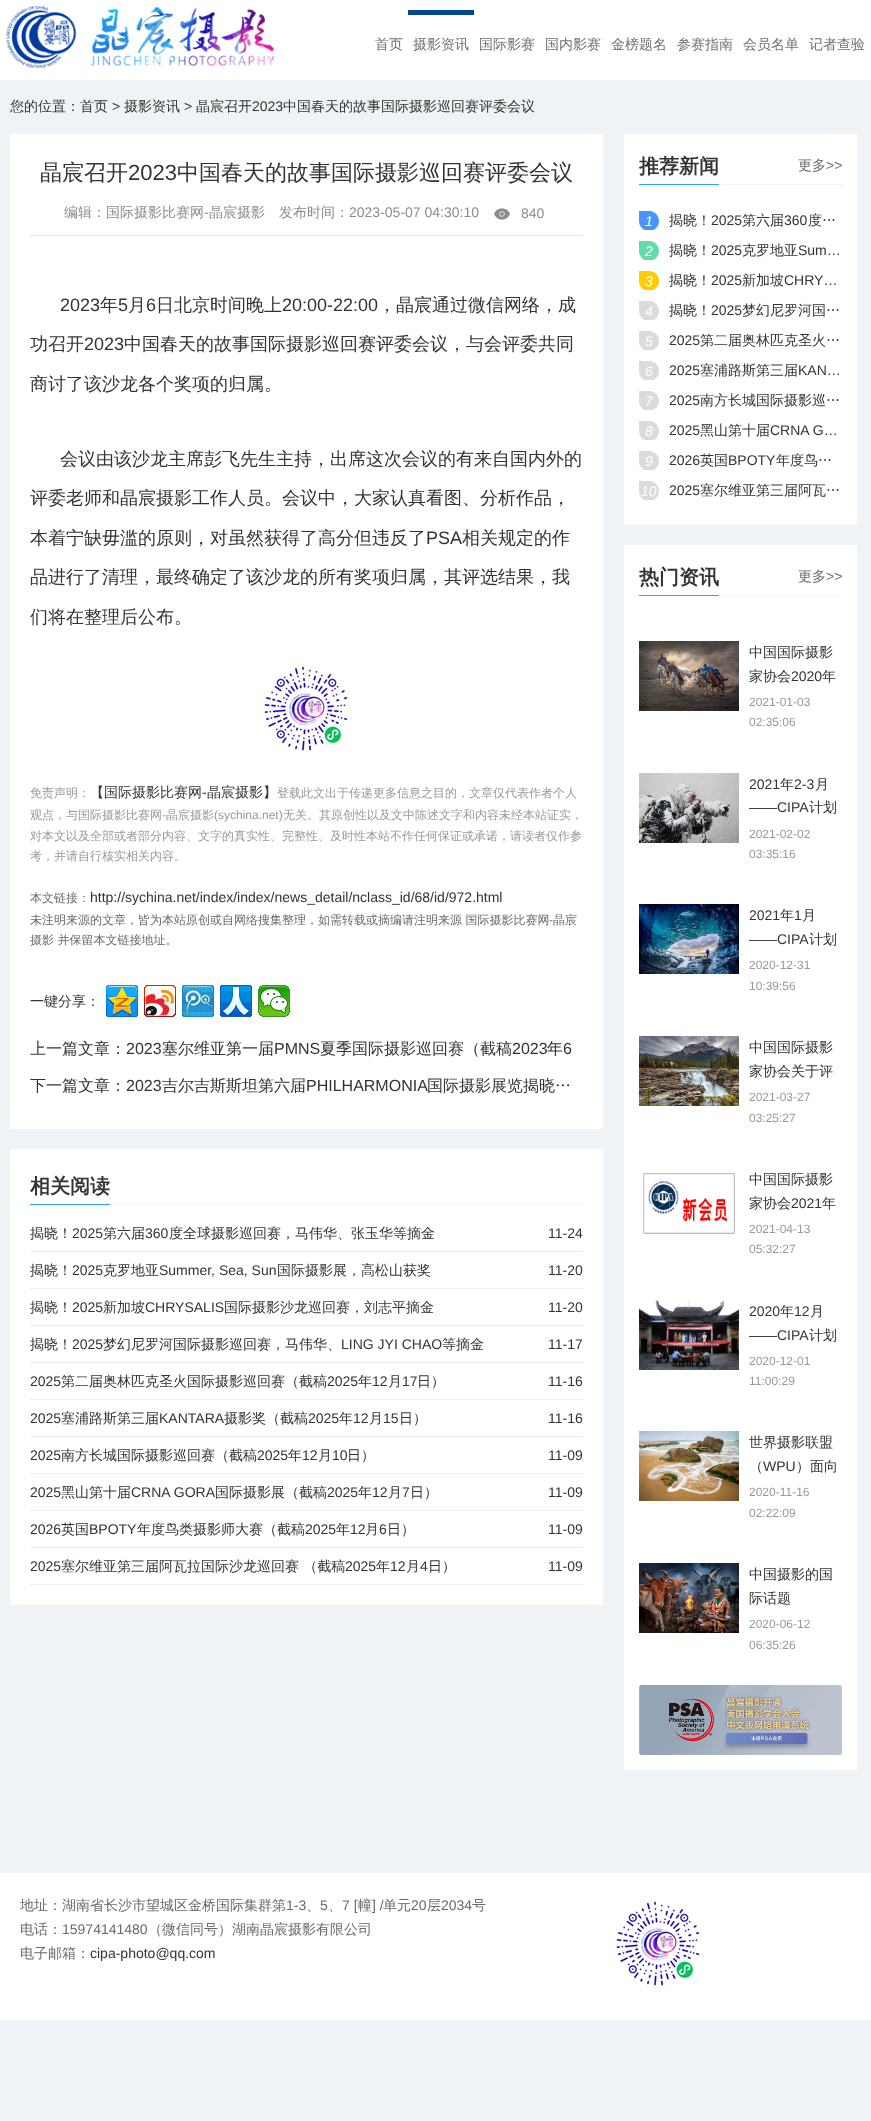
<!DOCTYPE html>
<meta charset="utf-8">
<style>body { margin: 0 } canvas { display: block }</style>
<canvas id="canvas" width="871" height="2121"></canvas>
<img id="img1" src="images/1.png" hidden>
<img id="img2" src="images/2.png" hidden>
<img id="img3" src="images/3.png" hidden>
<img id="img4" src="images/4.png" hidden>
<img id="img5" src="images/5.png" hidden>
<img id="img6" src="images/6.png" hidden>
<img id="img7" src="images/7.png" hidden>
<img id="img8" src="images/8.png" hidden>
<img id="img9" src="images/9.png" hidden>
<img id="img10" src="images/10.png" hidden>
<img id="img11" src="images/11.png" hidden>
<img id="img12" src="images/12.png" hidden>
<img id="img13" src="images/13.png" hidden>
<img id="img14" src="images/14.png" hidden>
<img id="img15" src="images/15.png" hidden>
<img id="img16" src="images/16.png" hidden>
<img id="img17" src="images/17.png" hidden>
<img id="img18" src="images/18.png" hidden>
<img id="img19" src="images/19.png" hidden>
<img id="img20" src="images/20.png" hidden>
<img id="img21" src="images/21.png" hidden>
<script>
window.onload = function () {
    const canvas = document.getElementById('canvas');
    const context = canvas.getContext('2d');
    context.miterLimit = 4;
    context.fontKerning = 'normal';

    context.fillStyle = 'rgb(239, 243, 245)';
    context.fillRect(0, 0, 871, 2121);
    context.fillStyle = 'rgb(255, 255, 255)';
    context.fillRect(0, 0, 871, 80);
    context.drawImage(document.getElementById('img1'), 6, 6, 269, 63);
    context.fillStyle = 'rgb(1, 74, 144)';
    context.fillRect(408, 10, 66, 5);
    context.fillStyle = 'rgb(255, 255, 255)';
    context.fillRect(10, 134, 593, 995);
    context.fillStyle = 'rgb(230, 230, 230)';
    context.fillRect(30, 235, 553, 1);
    context.drawImage(document.getElementById('img2'), 494, 208, 16, 12);
    context.drawImage(document.getElementById('img3'), 264, 666, 84, 85);
    context.drawImage(document.getElementById('img4'), 106, 985, 32, 32);
    context.drawImage(document.getElementById('img5'), 144, 985, 32, 32);
    context.drawImage(document.getElementById('img6'), 182, 985, 32, 32);
    context.drawImage(document.getElementById('img7'), 220, 985, 32, 32);
    context.drawImage(document.getElementById('img8'), 258, 985, 32, 32);
    context.fillStyle = 'rgb(255, 255, 255)';
    context.fillRect(10, 1149, 593, 456);
    context.fillStyle = 'rgb(243, 243, 243)';
    context.fillRect(110, 1204, 473, 1);
    context.fillStyle = 'rgb(37, 169, 243)';
    context.fillRect(30, 1204, 80, 1);
    context.fillStyle = 'rgb(238, 238, 238)';
    context.fillRect(30, 1251, 553, 1);
    context.fillRect(30, 1288, 553, 1);
    context.fillRect(30, 1325, 553, 1);
    context.fillRect(30, 1362, 553, 1);
    context.fillRect(30, 1399, 553, 1);
    context.fillRect(30, 1436, 553, 1);
    context.fillRect(30, 1473, 553, 1);
    context.fillRect(30, 1510, 553, 1);
    context.fillRect(30, 1547, 553, 1);
    context.fillRect(30, 1584, 553, 1);
    context.fillStyle = 'rgb(255, 255, 255)';
    context.fillRect(624, 134, 233, 391);
    context.fillStyle = 'rgb(243, 243, 243)';
    context.fillRect(719, 184, 123, 1);
    context.fillStyle = 'rgb(37, 169, 243)';
    context.fillRect(639, 184, 80, 1);
    context.drawImage(document.getElementById('img9'), 639, 211, 20, 19);
    context.drawImage(document.getElementById('img10'), 639, 241, 20, 19);
    context.drawImage(document.getElementById('img11'), 639, 271, 20, 19);
    context.drawImage(document.getElementById('img12'), 639, 301, 20, 19);
    context.drawImage(document.getElementById('img12'), 639, 331, 20, 19);
    context.drawImage(document.getElementById('img12'), 639, 361, 20, 19);
    context.drawImage(document.getElementById('img12'), 639, 391, 20, 19);
    context.drawImage(document.getElementById('img12'), 639, 421, 20, 19);
    context.drawImage(document.getElementById('img12'), 639, 451, 20, 19);
    context.drawImage(document.getElementById('img12'), 639, 481, 20, 19);
    context.fillStyle = 'rgb(255, 255, 255)';
    context.fillRect(624, 545, 233, 1225);
    context.fillStyle = 'rgb(243, 243, 243)';
    context.fillRect(719, 595, 123, 1);
    context.fillStyle = 'rgb(37, 169, 243)';
    context.fillRect(639, 595, 80, 1);
    context.drawImage(document.getElementById('img13'), 639, 641, 100, 70);
    context.drawImage(document.getElementById('img14'), 639, 773, 100, 70);
    context.drawImage(document.getElementById('img15'), 639, 904, 100, 70);
    context.drawImage(document.getElementById('img16'), 639, 1036, 100, 70);
    context.drawImage(document.getElementById('img17'), 643, 1173, 92, 61);
    context.drawImage(document.getElementById('img18'), 639, 1300, 100, 70);
    context.drawImage(document.getElementById('img19'), 639, 1431, 100, 70);
    context.drawImage(document.getElementById('img20'), 639, 1563, 100, 70);
    context.drawImage(document.getElementById('img21'), 639, 1685, 203, 70);
    context.fillStyle = 'rgb(255, 255, 255)';
    context.fillRect(0, 1873, 871, 147);
    context.drawImage(document.getElementById('img3'), 616, 1901, 84, 85);
    context.font = '500 14px WenQuanYi Zen Hei';
    context.fillStyle = 'rgb(112, 112, 112)';
    context.fillText('首页', 375, 49);
    context.fillText('摄影资讯', 413, 49);
    context.fillText('国际影赛', 479, 49);
    context.fillText('国内影赛', 545, 49);
    context.fillText('金榜题名', 611, 49);
    context.fillText('参赛指南', 677, 49);
    context.fillText('会员名单', 743, 49);
    context.fillText('记者查验', 809, 49);
    context.fillStyle = 'rgb(51, 51, 51)';
    context.fillText('您的位置：首页', 10, 111);
    context.font = '14px Liberation Sans';
    context.fillText('>', 112, 111);
    context.font = '500 14px WenQuanYi Zen Hei';
    context.fillText('摄影资讯', 124, 111);
    context.font = '14px Liberation Sans';
    context.fillText('>', 184, 111);
    context.font = '500 14px WenQuanYi Zen Hei';
    context.fillText('晶宸召开', 196, 111);
    context.font = '14px Liberation Sans';
    context.fillText('2023', 252, 111);
    context.font = '500 14px WenQuanYi Zen Hei';
    context.fillText('中国春天的故事国际摄影巡回赛评委会议', 283, 111);
    context.font = '500 22px WenQuanYi Zen Hei';
    context.fillText('晶宸召开', 40, 180);
    context.font = '22px Liberation Sans';
    context.fillText('2023', 128, 180);
    context.font = '500 22px WenQuanYi Zen Hei';
    context.fillText('中国春天的故事国际摄影巡回赛评委会议', 177, 180);
    context.font = '500 14px WenQuanYi Zen Hei';
    context.fillStyle = 'rgb(140, 140, 140)';
    context.fillText('编辑：国际摄影比赛网', 64, 217);
    context.font = '14px Liberation Sans';
    context.fillText('-', 204, 217);
    context.font = '500 14px WenQuanYi Zen Hei';
    context.fillText('晶宸摄影', 209, 217);
    context.fillText('发布时间：', 279, 217);
    context.font = '14px Liberation Sans';
    context.fillText('2023-05-07 04:30:10', 349, 217);
    context.fillText('840', 521, 218);
    context.font = '18px Liberation Sans';
    context.fillStyle = 'rgb(51, 51, 51)';
    context.fillText('2023', 60, 311);
    context.font = '500 18px WenQuanYi Zen Hei';
    context.fillText('年', 100, 311);
    context.font = '18px Liberation Sans';
    context.fillText('5', 118, 311);
    context.font = '500 18px WenQuanYi Zen Hei';
    context.fillText('月', 128, 311);
    context.font = '18px Liberation Sans';
    context.fillText('6', 146, 311);
    context.font = '500 18px WenQuanYi Zen Hei';
    context.fillText('日北京时间晚上', 156, 311);
    context.font = '18px Liberation Sans';
    context.fillText('20:00-22:00', 282, 311);
    context.font = '500 18px WenQuanYi Zen Hei';
    context.fillText('，晶宸通过微信网络，成', 378, 311);
    context.fillText('功召开', 30, 350);
    context.font = '18px Liberation Sans';
    context.fillText('2023', 84, 350);
    context.font = '500 18px WenQuanYi Zen Hei';
    context.fillText('中国春天的故事国际摄影巡回赛评委会议，与会评委共同', 124, 350);
    context.fillText('商讨了该沙龙各个奖项的归属。', 30, 390);
    context.fillText('会议由该沙龙主席彭飞先生主持，出席这次会议的有来自国内外的', 60, 465);
    context.fillText('评委老师和晶宸摄影工作人员。会议中，大家认真看图、分析作品，', 30, 504);
    context.fillText('本着宁缺毋滥的原则，对虽然获得了高分但违反了', 30, 544);
    context.font = '18px Liberation Sans';
    context.fillText('PSA', 426, 544);
    context.font = '500 18px WenQuanYi Zen Hei';
    context.fillText('相关规定的作', 462, 544);
    context.fillText('品进行了清理，最终确定了该沙龙的所有奖项归属，其评选结果，我', 30, 583);
    context.fillText('们将在整理后公布。', 30, 623);
    context.font = '500 12px WenQuanYi Zen Hei';
    context.fillStyle = 'rgb(153, 153, 153)';
    context.fillText('免责声明：', 30, 797);
    context.font = '500 14px WenQuanYi Zen Hei';
    context.fillStyle = 'rgb(51, 51, 51)';
    context.fillText('【国际摄影比赛网', 90, 797);
    context.font = '14px Liberation Sans';
    context.fillText('-', 202, 797);
    context.font = '500 14px WenQuanYi Zen Hei';
    context.fillText('晶宸摄影】', 207, 797);
    context.font = '500 12px WenQuanYi Zen Hei';
    context.fillStyle = 'rgb(153, 153, 153)';
    context.fillText('登载此文出于传递更多信息之目的，文章仅代表作者个人', 277, 797);
    context.fillText('观点，与国际摄影比赛网', 30, 819);
    context.font = '12px Liberation Sans';
    context.fillText('-', 162, 819);
    context.font = '500 12px WenQuanYi Zen Hei';
    context.fillText('晶宸摄影', 166, 819);
    context.font = '12px Liberation Sans';
    context.fillText('(sychina.net)', 214, 819);
    context.font = '500 12px WenQuanYi Zen Hei';
    context.fillText('无关。其原创性以及文中陈述文字和内容未经本站证实，', 283, 819);
    context.fillText('对本文以及全部或者部分内容、文字的真实性、完整性、及时性本站不作任何保证或承诺，请读者仅作参', 30, 840);
    context.fillText('考，并请自行核实相关内容。', 30, 860);
    context.fillStyle = 'rgb(105, 105, 105)';
    context.fillText('本文链接：', 30, 902);
    context.font = '14px Liberation Sans';
    context.fillStyle = 'rgb(51, 51, 51)';
    context.fillText('http://sychina.net/index/index/news_detail/nclass_id/68/id/972.html', 90, 902);
    context.font = '500 12px WenQuanYi Zen Hei';
    context.fillStyle = 'rgb(105, 105, 105)';
    context.fillText('未注明来源的文章，皆为本站原创或自网络搜集整理，如需转载或摘编请注明来源 国际摄影比赛网', 30, 924);
    context.font = '12px Liberation Sans';
    context.fillText('-', 549, 924);
    context.font = '500 12px WenQuanYi Zen Hei';
    context.fillText('晶宸', 553, 924);
    context.fillText('摄影 并保留本文链接地址。', 30, 944);
    context.font = '500 14px WenQuanYi Zen Hei';
    context.fillStyle = 'rgb(51, 51, 51)';
    context.fillText('一键分享：', 30, 1006);
    context.font = '500 16px WenQuanYi Zen Hei';
    context.fillText('上一篇文章：', 30, 1054);
    context.font = '16px Liberation Sans';
    context.fillText('2023', 126, 1054);
    context.font = '500 16px WenQuanYi Zen Hei';
    context.fillText('塞尔维亚第一届', 162, 1054);
    context.font = '16px Liberation Sans';
    context.fillText('PMNS', 274, 1054);
    context.font = '500 16px WenQuanYi Zen Hei';
    context.fillText('夏季国际摄影巡回赛（截稿', 320, 1054);
    context.font = '16px Liberation Sans';
    context.fillText('2023', 512, 1054);
    context.font = '500 16px WenQuanYi Zen Hei';
    context.fillText('年', 547, 1054);
    context.font = '16px Liberation Sans';
    context.fillText('6', 563, 1054);
    context.font = '500 16px WenQuanYi Zen Hei';
    context.fillText('下一篇文章：', 30, 1091);
    context.font = '16px Liberation Sans';
    context.fillText('2023', 126, 1091);
    context.font = '500 16px WenQuanYi Zen Hei';
    context.fillText('吉尔吉斯斯坦第六届', 162, 1091);
    context.font = '16px Liberation Sans';
    context.fillText('PHILHARMONIA', 306, 1091);
    context.font = '500 16px WenQuanYi Zen Hei';
    context.fillText('国际摄影展览揭晓…', 427, 1091);
    context.font = 'bold 20px WenQuanYi Zen Hei';
    context.fillText('相关阅读', 30, 1193);
    context.font = '500 14px WenQuanYi Zen Hei';
    context.fillText('揭晓！', 30, 1238);
    context.font = '14px Liberation Sans';
    context.fillText('2025', 72, 1238);
    context.font = '500 14px WenQuanYi Zen Hei';
    context.fillText('第六届', 103, 1238);
    context.font = '14px Liberation Sans';
    context.fillText('360', 145, 1238);
    context.font = '500 14px WenQuanYi Zen Hei';
    context.fillText('度全球摄影巡回赛，马伟华、张玉华等摘金', 169, 1238);
    context.font = '14px Liberation Sans';
    context.fillText('11-24', 548, 1238);
    context.font = '500 14px WenQuanYi Zen Hei';
    context.fillText('揭晓！', 30, 1275);
    context.font = '14px Liberation Sans';
    context.fillText('2025', 72, 1275);
    context.font = '500 14px WenQuanYi Zen Hei';
    context.fillText('克罗地亚', 103, 1275);
    context.font = '14px Liberation Sans';
    context.fillText('Summer, Sea, Sun', 159, 1275);
    context.font = '500 14px WenQuanYi Zen Hei';
    context.fillText('国际摄影展，高松山获奖', 277, 1275);
    context.font = '14px Liberation Sans';
    context.fillText('11-20', 548, 1275);
    context.font = '500 14px WenQuanYi Zen Hei';
    context.fillText('揭晓！', 30, 1312);
    context.font = '14px Liberation Sans';
    context.fillText('2025', 72, 1312);
    context.font = '500 14px WenQuanYi Zen Hei';
    context.fillText('新加坡', 103, 1312);
    context.font = '14px Liberation Sans';
    context.fillText('CHRYSALIS', 145, 1312);
    context.font = '500 14px WenQuanYi Zen Hei';
    context.fillText('国际摄影沙龙巡回赛，刘志平摘金', 224, 1312);
    context.font = '14px Liberation Sans';
    context.fillText('11-20', 548, 1312);
    context.font = '500 14px WenQuanYi Zen Hei';
    context.fillText('揭晓！', 30, 1349);
    context.font = '14px Liberation Sans';
    context.fillText('2025', 72, 1349);
    context.font = '500 14px WenQuanYi Zen Hei';
    context.fillText('梦幻尼罗河国际摄影巡回赛，马伟华、', 103, 1349);
    context.font = '14px Liberation Sans';
    context.fillText('LING JYI CHAO', 341, 1349);
    context.font = '500 14px WenQuanYi Zen Hei';
    context.fillText('等摘金', 442, 1349);
    context.font = '14px Liberation Sans';
    context.fillText('11-17', 548, 1349);
    context.fillText('2025', 30, 1386);
    context.font = '500 14px WenQuanYi Zen Hei';
    context.fillText('第二届奥林匹克圣火国际摄影巡回赛（截稿', 61, 1386);
    context.font = '14px Liberation Sans';
    context.fillText('2025', 327, 1386);
    context.font = '500 14px WenQuanYi Zen Hei';
    context.fillText('年', 358, 1386);
    context.font = '14px Liberation Sans';
    context.fillText('12', 372, 1386);
    context.font = '500 14px WenQuanYi Zen Hei';
    context.fillText('月', 388, 1386);
    context.font = '14px Liberation Sans';
    context.fillText('17', 402, 1386);
    context.font = '500 14px WenQuanYi Zen Hei';
    context.fillText('日）', 417, 1386);
    context.font = '14px Liberation Sans';
    context.fillText('11-16', 548, 1386);
    context.fillText('2025', 30, 1423);
    context.font = '500 14px WenQuanYi Zen Hei';
    context.fillText('塞浦路斯第三届', 61, 1423);
    context.font = '14px Liberation Sans';
    context.fillText('KANTARA', 159, 1423);
    context.font = '500 14px WenQuanYi Zen Hei';
    context.fillText('摄影奖（截稿', 224, 1423);
    context.font = '14px Liberation Sans';
    context.fillText('2025', 308, 1423);
    context.font = '500 14px WenQuanYi Zen Hei';
    context.fillText('年', 339, 1423);
    context.font = '14px Liberation Sans';
    context.fillText('12', 353, 1423);
    context.font = '500 14px WenQuanYi Zen Hei';
    context.fillText('月', 369, 1423);
    context.font = '14px Liberation Sans';
    context.fillText('15', 383, 1423);
    context.font = '500 14px WenQuanYi Zen Hei';
    context.fillText('日）', 399, 1423);
    context.font = '14px Liberation Sans';
    context.fillText('11-16', 548, 1423);
    context.fillText('2025', 30, 1460);
    context.font = '500 14px WenQuanYi Zen Hei';
    context.fillText('南方长城国际摄影巡回赛（截稿', 61, 1460);
    context.font = '14px Liberation Sans';
    context.fillText('2025', 257, 1460);
    context.font = '500 14px WenQuanYi Zen Hei';
    context.fillText('年', 288, 1460);
    context.font = '14px Liberation Sans';
    context.fillText('12', 302, 1460);
    context.font = '500 14px WenQuanYi Zen Hei';
    context.fillText('月', 318, 1460);
    context.font = '14px Liberation Sans';
    context.fillText('10', 332, 1460);
    context.font = '500 14px WenQuanYi Zen Hei';
    context.fillText('日）', 347, 1460);
    context.font = '14px Liberation Sans';
    context.fillText('11-09', 548, 1460);
    context.fillText('2025', 30, 1497);
    context.font = '500 14px WenQuanYi Zen Hei';
    context.fillText('黑山第十届', 61, 1497);
    context.font = '14px Liberation Sans';
    context.fillText('CRNA GORA', 131, 1497);
    context.font = '500 14px WenQuanYi Zen Hei';
    context.fillText('国际摄影展（截稿', 215, 1497);
    context.font = '14px Liberation Sans';
    context.fillText('2025', 327, 1497);
    context.font = '500 14px WenQuanYi Zen Hei';
    context.fillText('年', 358, 1497);
    context.font = '14px Liberation Sans';
    context.fillText('12', 372, 1497);
    context.font = '500 14px WenQuanYi Zen Hei';
    context.fillText('月', 388, 1497);
    context.font = '14px Liberation Sans';
    context.fillText('7', 402, 1497);
    context.font = '500 14px WenQuanYi Zen Hei';
    context.fillText('日）', 410, 1497);
    context.font = '14px Liberation Sans';
    context.fillText('11-09', 548, 1497);
    context.fillText('2026', 30, 1534);
    context.font = '500 14px WenQuanYi Zen Hei';
    context.fillText('英国', 61, 1534);
    context.font = '14px Liberation Sans';
    context.fillText('BPOTY', 89, 1534);
    context.font = '500 14px WenQuanYi Zen Hei';
    context.fillText('年度鸟类摄影师大赛（截稿', 137, 1534);
    context.font = '14px Liberation Sans';
    context.fillText('2025', 305, 1534);
    context.font = '500 14px WenQuanYi Zen Hei';
    context.fillText('年', 336, 1534);
    context.font = '14px Liberation Sans';
    context.fillText('12', 350, 1534);
    context.font = '500 14px WenQuanYi Zen Hei';
    context.fillText('月', 365, 1534);
    context.font = '14px Liberation Sans';
    context.fillText('6', 379, 1534);
    context.font = '500 14px WenQuanYi Zen Hei';
    context.fillText('日）', 387, 1534);
    context.font = '14px Liberation Sans';
    context.fillText('11-09', 548, 1534);
    context.fillText('2025', 30, 1571);
    context.font = '500 14px WenQuanYi Zen Hei';
    context.fillText('塞尔维亚第三届阿瓦拉国际沙龙巡回赛 （截稿', 61, 1571);
    context.font = '14px Liberation Sans';
    context.fillText('2025', 345, 1571);
    context.font = '500 14px WenQuanYi Zen Hei';
    context.fillText('年', 376, 1571);
    context.font = '14px Liberation Sans';
    context.fillText('12', 390, 1571);
    context.font = '500 14px WenQuanYi Zen Hei';
    context.fillText('月', 406, 1571);
    context.font = '14px Liberation Sans';
    context.fillText('4', 420, 1571);
    context.font = '500 14px WenQuanYi Zen Hei';
    context.fillText('日）', 428, 1571);
    context.font = '14px Liberation Sans';
    context.fillText('11-09', 548, 1571);
    context.font = 'bold 20px WenQuanYi Zen Hei';
    context.fillText('推荐新闻', 639, 173);
    context.font = '500 14px WenQuanYi Zen Hei';
    context.fillStyle = 'rgb(105, 105, 105)';
    context.fillText('更多', 798, 170);
    context.font = '14px Liberation Sans';
    context.fillText('>>', 826, 170);
    context.font = 'italic 14px Liberation Sans';
    context.fillStyle = 'rgb(255, 255, 255)';
    context.fillText('1', 645, 226);
    context.font = '500 14px WenQuanYi Zen Hei';
    context.fillStyle = 'rgb(51, 51, 51)';
    context.fillText('揭晓！', 669, 225);
    context.font = '14px Liberation Sans';
    context.fillText('2025', 711, 225);
    context.font = '500 14px WenQuanYi Zen Hei';
    context.fillText('第六届', 742, 225);
    context.font = '14px Liberation Sans';
    context.fillText('360', 784, 225);
    context.font = '500 14px WenQuanYi Zen Hei';
    context.fillText('度…', 808, 225);
    context.font = 'italic 14px Liberation Sans';
    context.fillStyle = 'rgb(255, 255, 255)';
    context.fillText('2', 645, 256);
    context.font = '500 14px WenQuanYi Zen Hei';
    context.fillStyle = 'rgb(51, 51, 51)';
    context.fillText('揭晓！', 669, 255);
    context.font = '14px Liberation Sans';
    context.fillText('2025', 711, 255);
    context.font = '500 14px WenQuanYi Zen Hei';
    context.fillText('克罗地亚', 742, 255);
    context.font = '14px Liberation Sans';
    context.fillText('Sum…', 798, 255);
    context.font = 'italic 14px Liberation Sans';
    context.fillStyle = 'rgb(255, 255, 255)';
    context.fillText('3', 645, 286);
    context.font = '500 14px WenQuanYi Zen Hei';
    context.fillStyle = 'rgb(51, 51, 51)';
    context.fillText('揭晓！', 669, 285);
    context.font = '14px Liberation Sans';
    context.fillText('2025', 711, 285);
    context.font = '500 14px WenQuanYi Zen Hei';
    context.fillText('新加坡', 742, 285);
    context.font = '14px Liberation Sans';
    context.fillText('CHRY…', 784, 285);
    context.font = 'italic 14px Liberation Sans';
    context.fillStyle = 'rgb(255, 255, 255)';
    context.fillText('4', 645, 316);
    context.font = '500 14px WenQuanYi Zen Hei';
    context.fillStyle = 'rgb(51, 51, 51)';
    context.fillText('揭晓！', 669, 315);
    context.font = '14px Liberation Sans';
    context.fillText('2025', 711, 315);
    context.font = '500 14px WenQuanYi Zen Hei';
    context.fillText('梦幻尼罗河国…', 742, 315);
    context.font = 'italic 14px Liberation Sans';
    context.fillStyle = 'rgb(255, 255, 255)';
    context.fillText('5', 645, 346);
    context.font = '14px Liberation Sans';
    context.fillStyle = 'rgb(51, 51, 51)';
    context.fillText('2025', 669, 345);
    context.font = '500 14px WenQuanYi Zen Hei';
    context.fillText('第二届奥林匹克圣火…', 700, 345);
    context.font = 'italic 14px Liberation Sans';
    context.fillStyle = 'rgb(255, 255, 255)';
    context.fillText('6', 645, 376);
    context.font = '14px Liberation Sans';
    context.fillStyle = 'rgb(51, 51, 51)';
    context.fillText('2025', 669, 375);
    context.font = '500 14px WenQuanYi Zen Hei';
    context.fillText('塞浦路斯第三届', 700, 375);
    context.font = '14px Liberation Sans';
    context.fillText('KAN…', 798, 375);
    context.font = 'italic 14px Liberation Sans';
    context.fillStyle = 'rgb(255, 255, 255)';
    context.fillText('7', 645, 406);
    context.font = '14px Liberation Sans';
    context.fillStyle = 'rgb(51, 51, 51)';
    context.fillText('2025', 669, 405);
    context.font = '500 14px WenQuanYi Zen Hei';
    context.fillText('南方长城国际摄影巡…', 700, 405);
    context.font = 'italic 14px Liberation Sans';
    context.fillStyle = 'rgb(255, 255, 255)';
    context.fillText('8', 645, 436);
    context.font = '14px Liberation Sans';
    context.fillStyle = 'rgb(51, 51, 51)';
    context.fillText('2025', 669, 435);
    context.font = '500 14px WenQuanYi Zen Hei';
    context.fillText('黑山第十届', 700, 435);
    context.font = '14px Liberation Sans';
    context.fillText('CRNA G…', 770, 435);
    context.font = 'italic 14px Liberation Sans';
    context.fillStyle = 'rgb(255, 255, 255)';
    context.fillText('9', 645, 466);
    context.font = '14px Liberation Sans';
    context.fillStyle = 'rgb(51, 51, 51)';
    context.fillText('2026', 669, 465);
    context.font = '500 14px WenQuanYi Zen Hei';
    context.fillText('英国', 700, 465);
    context.font = '14px Liberation Sans';
    context.fillText('BPOTY', 728, 465);
    context.font = '500 14px WenQuanYi Zen Hei';
    context.fillText('年度鸟…', 776, 465);
    context.font = 'italic 14px Liberation Sans';
    context.fillStyle = 'rgb(255, 255, 255)';
    context.fillText('10', 641, 496);
    context.font = '14px Liberation Sans';
    context.fillStyle = 'rgb(51, 51, 51)';
    context.fillText('2025', 669, 495);
    context.font = '500 14px WenQuanYi Zen Hei';
    context.fillText('塞尔维亚第三届阿瓦…', 700, 495);
    context.font = 'bold 20px WenQuanYi Zen Hei';
    context.fillText('热门资讯', 639, 584);
    context.font = '500 14px WenQuanYi Zen Hei';
    context.fillStyle = 'rgb(105, 105, 105)';
    context.fillText('更多', 798, 581);
    context.font = '14px Liberation Sans';
    context.fillText('>>', 826, 581);
    context.font = '500 14px WenQuanYi Zen Hei';
    context.fillStyle = 'rgb(51, 51, 51)';
    context.fillText('中国国际摄影', 749, 657);
    context.fillText('家协会', 749, 681);
    context.font = '14px Liberation Sans';
    context.fillText('2020', 791, 681);
    context.font = '500 14px WenQuanYi Zen Hei';
    context.fillText('年', 822, 681);
    context.font = '12px Liberation Sans';
    context.fillStyle = 'rgb(153, 153, 153)';
    context.fillText('2021-01-03', 749, 706);
    context.fillText('02:35:06', 749, 726);
    context.font = '14px Liberation Sans';
    context.fillStyle = 'rgb(51, 51, 51)';
    context.fillText('2021', 749, 789);
    context.font = '500 14px WenQuanYi Zen Hei';
    context.fillText('年', 780, 789);
    context.font = '14px Liberation Sans';
    context.fillText('2-3', 794, 789);
    context.font = '500 14px WenQuanYi Zen Hei';
    context.fillText('月', 815, 789);
    context.font = '14px Liberation Sans';
    context.fillText('——CIPA', 749, 812);
    context.font = '500 14px WenQuanYi Zen Hei';
    context.fillText('计划', 809, 812);
    context.font = '12px Liberation Sans';
    context.fillStyle = 'rgb(153, 153, 153)';
    context.fillText('2021-02-02', 749, 838);
    context.fillText('03:35:16', 749, 858);
    context.font = '14px Liberation Sans';
    context.fillStyle = 'rgb(51, 51, 51)';
    context.fillText('2021', 749, 920);
    context.font = '500 14px WenQuanYi Zen Hei';
    context.fillText('年', 780, 920);
    context.font = '14px Liberation Sans';
    context.fillText('1', 794, 920);
    context.font = '500 14px WenQuanYi Zen Hei';
    context.fillText('月', 802, 920);
    context.font = '14px Liberation Sans';
    context.fillText('——CIPA', 749, 944);
    context.font = '500 14px WenQuanYi Zen Hei';
    context.fillText('计划', 809, 944);
    context.font = '12px Liberation Sans';
    context.fillStyle = 'rgb(153, 153, 153)';
    context.fillText('2020-12-31', 749, 969);
    context.fillText('10:39:56', 749, 990);
    context.font = '500 14px WenQuanYi Zen Hei';
    context.fillStyle = 'rgb(51, 51, 51)';
    context.fillText('中国国际摄影', 749, 1052);
    context.fillText('家协会关于评', 749, 1076);
    context.font = '12px Liberation Sans';
    context.fillStyle = 'rgb(153, 153, 153)';
    context.fillText('2021-03-27', 749, 1101);
    context.fillText('03:25:27', 749, 1122);
    context.font = '500 14px WenQuanYi Zen Hei';
    context.fillStyle = 'rgb(51, 51, 51)';
    context.fillText('中国国际摄影', 749, 1184);
    context.fillText('家协会', 749, 1208);
    context.font = '14px Liberation Sans';
    context.fillText('2021', 791, 1208);
    context.font = '500 14px WenQuanYi Zen Hei';
    context.fillText('年', 822, 1208);
    context.font = '12px Liberation Sans';
    context.fillStyle = 'rgb(153, 153, 153)';
    context.fillText('2021-04-13', 749, 1233);
    context.fillText('05:32:27', 749, 1253);
    context.font = '14px Liberation Sans';
    context.fillStyle = 'rgb(51, 51, 51)';
    context.fillText('2020', 749, 1316);
    context.font = '500 14px WenQuanYi Zen Hei';
    context.fillText('年', 780, 1316);
    context.font = '14px Liberation Sans';
    context.fillText('12', 794, 1316);
    context.font = '500 14px WenQuanYi Zen Hei';
    context.fillText('月', 810, 1316);
    context.font = '14px Liberation Sans';
    context.fillText('——CIPA', 749, 1340);
    context.font = '500 14px WenQuanYi Zen Hei';
    context.fillText('计划', 809, 1340);
    context.font = '12px Liberation Sans';
    context.fillStyle = 'rgb(153, 153, 153)';
    context.fillText('2020-12-01', 749, 1365);
    context.fillText('11:00:29', 749, 1385);
    context.font = '500 14px WenQuanYi Zen Hei';
    context.fillStyle = 'rgb(51, 51, 51)';
    context.fillText('世界摄影联盟', 749, 1447);
    context.fillText('（', 749, 1471);
    context.font = '14px Liberation Sans';
    context.fillText('WPU', 763, 1471);
    context.font = '500 14px WenQuanYi Zen Hei';
    context.fillText('）面向', 796, 1471);
    context.font = '12px Liberation Sans';
    context.fillStyle = 'rgb(153, 153, 153)';
    context.fillText('2020-11-16', 749, 1496);
    context.fillText('02:22:09', 749, 1517);
    context.font = '500 14px WenQuanYi Zen Hei';
    context.fillStyle = 'rgb(51, 51, 51)';
    context.fillText('中国摄影的国', 749, 1579);
    context.fillText('际话题', 749, 1603);
    context.font = '12px Liberation Sans';
    context.fillStyle = 'rgb(153, 153, 153)';
    context.fillText('2020-06-12', 749, 1628);
    context.fillText('06:35:26', 749, 1649);
    context.font = '500 14px WenQuanYi Zen Hei';
    context.fillStyle = 'rgb(105, 105, 105)';
    context.fillText('地址：湖南省长沙市望城区金桥国际集群第', 20, 1910);
    context.font = '14px Liberation Sans';
    context.fillText('1-3', 286, 1910);
    context.font = '500 14px WenQuanYi Zen Hei';
    context.fillText('、', 306, 1910);
    context.font = '14px Liberation Sans';
    context.fillText('5', 320, 1910);
    context.font = '500 14px WenQuanYi Zen Hei';
    context.fillText('、', 328, 1910);
    context.font = '14px Liberation Sans';
    context.fillText('7 [', 342, 1910);
    context.font = '500 14px WenQuanYi Zen Hei';
    context.fillText('幢', 358, 1910);
    context.font = '14px Liberation Sans';
    context.fillText('] /', 372, 1910);
    context.font = '500 14px WenQuanYi Zen Hei';
    context.fillText('单元', 383, 1910);
    context.font = '14px Liberation Sans';
    context.fillText('20', 411, 1910);
    context.font = '500 14px WenQuanYi Zen Hei';
    context.fillText('层', 427, 1910);
    context.font = '14px Liberation Sans';
    context.fillText('2034', 441, 1910);
    context.font = '500 14px WenQuanYi Zen Hei';
    context.fillText('号', 472, 1910);
    context.fillText('电话：', 20, 1934);
    context.font = '14px Liberation Sans';
    context.fillText('15974141480', 62, 1934);
    context.font = '500 14px WenQuanYi Zen Hei';
    context.fillText('（微信同号）湖南晶宸摄影有限公司', 148, 1934);
    context.fillText('电子邮箱：', 20, 1958);
    context.font = '14px Liberation Sans';
    context.fillStyle = 'rgb(51, 51, 51)';
    context.fillText('cipa-photo@qq.com', 90, 1958);
};
</script>
